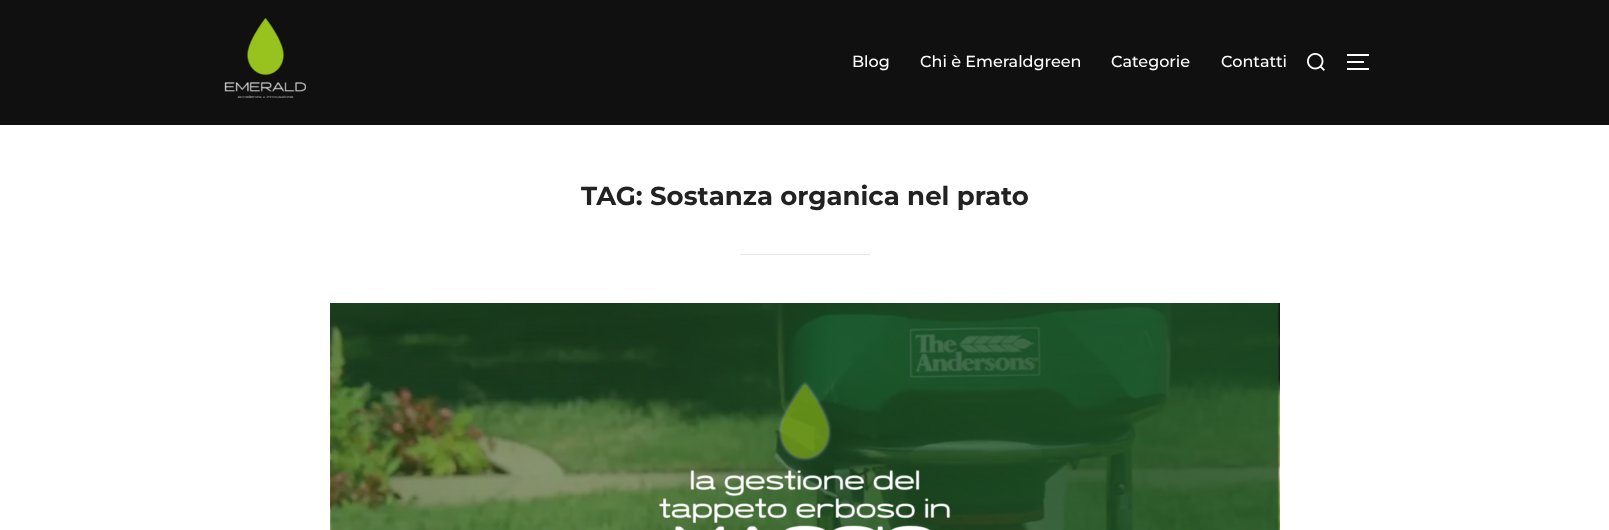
<!DOCTYPE html>
<meta charset="utf-8">
<style>body { margin: 0 } canvas { display: block }</style>
<canvas id="canvas" width="1609" height="530"></canvas>
<img id="img1" src="images/1.png" hidden>
<img id="img2" src="images/2.png" hidden>
<img id="img3" src="images/3.png" hidden>
<script>
window.onload = function () {
    const canvas = document.getElementById('canvas');
    const context = canvas.getContext('2d');
    context.miterLimit = 4;
    context.fontKerning = 'normal';

    context.fillStyle = 'rgb(255, 255, 255)';
    context.fillRect(0, 0, 1609, 530);
    context.fillStyle = 'rgb(16, 16, 16)';
    context.fillRect(0, 0, 1609, 125);
    context.drawImage(document.getElementById('img1'), 224, 18, 82, 80);
    context.drawImage(document.getElementById('img2'), 1307, 53, 18, 18);
    context.fillStyle = 'rgb(255, 255, 255)';
    context.fillRect(1347, 54, 22, 2);
    context.fillRect(1347, 61, 17, 2);
    context.fillRect(1347, 68, 22, 2);
    context.fillStyle = 'rgb(230, 230, 230)';
    context.fillRect(740, 254, 130, 1);
    context.drawImage(document.getElementById('img3'), 330, 303, 950, 227);
    context.font = '500 16px Montserrat';
    context.fillStyle = 'rgb(255, 255, 255)';
    context.fillText('Blog', 852, 67);
    context.fillText('Chi è Emeraldgreen', 920, 67);
    context.fillText('Categorie', 1111, 67);
    context.fillText('Contatti', 1221, 67);
    context.font = 'bold 26px Montserrat';
    context.fillStyle = 'rgb(34, 34, 34)';
    context.fillText('TAG: Sostanza organica nel prato', 581, 205);
};
</script>
